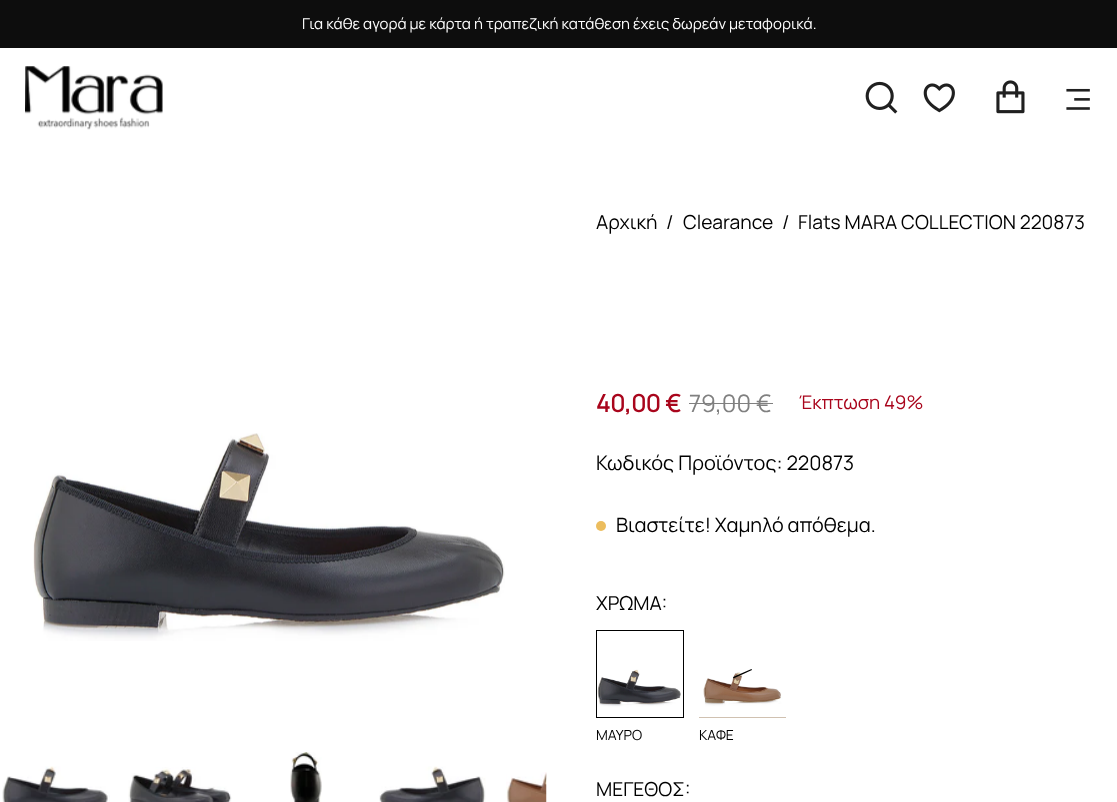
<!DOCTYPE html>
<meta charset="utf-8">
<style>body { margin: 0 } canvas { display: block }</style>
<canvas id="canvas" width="1117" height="802"></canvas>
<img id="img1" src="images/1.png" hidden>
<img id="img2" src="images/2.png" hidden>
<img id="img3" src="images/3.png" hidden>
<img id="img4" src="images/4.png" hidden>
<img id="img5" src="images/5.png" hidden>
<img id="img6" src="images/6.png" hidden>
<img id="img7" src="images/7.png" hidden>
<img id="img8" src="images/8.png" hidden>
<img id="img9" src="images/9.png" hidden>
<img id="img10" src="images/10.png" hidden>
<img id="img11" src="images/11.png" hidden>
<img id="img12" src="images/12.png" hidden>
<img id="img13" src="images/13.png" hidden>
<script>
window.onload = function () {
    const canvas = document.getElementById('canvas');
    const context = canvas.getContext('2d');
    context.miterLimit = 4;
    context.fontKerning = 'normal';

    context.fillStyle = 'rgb(255, 255, 255)';
    context.fillRect(0, 0, 1117, 802);
    context.fillStyle = 'rgb(13, 13, 13)';
    context.fillRect(0, 0, 1117, 48);
    context.drawImage(document.getElementById('img1'), 25, 66, 138, 64);
    context.drawImage(document.getElementById('img2'), 865, 81, 33, 33);
    context.drawImage(document.getElementById('img3'), 923, 83, 32, 30);
    context.drawImage(document.getElementById('img4'), 996, 80, 29, 34);
    context.drawImage(document.getElementById('img5'), 1066, 88, 24, 22);
    context.drawImage(document.getElementById('img6'), 33, 433, 472, 208);
    context.drawImage(document.getElementById('img7'), 2, 766, 108, 36);
    context.drawImage(document.getElementById('img8'), 128, 767, 104, 35);
    context.drawImage(document.getElementById('img9'), 290, 752, 32, 50);
    context.drawImage(document.getElementById('img10'), 379, 766, 107, 36);
    context.drawImage(document.getElementById('img11'), 506, 772, 41, 30);
    context.fillStyle = 'rgb(128, 128, 128)';
    context.fillRect(689, 403, 84, 1);
    context.fillStyle = 'rgb(236, 189, 94)';
    context.beginPath();
    context.arc(601, 526, 5, 0, 2 * Math.PI);
    context.fill();
    context.drawImage(document.getElementById('img12'), 597, 631, 86, 86);
    context.strokeStyle = 'rgb(0, 0, 0)';
    context.strokeRect(596.5, 630.5, 87, 87);
    context.fillStyle = 'rgb(161, 130, 98)';
    context.fillRect(699, 717, 87, 1);
    context.drawImage(document.getElementById('img13'), 699, 630, 87, 88);
    context.fillStyle = 'rgb(0, 0, 0)';
    context.beginPath();
    context.moveTo(752, 670);
    context.lineTo(733.5, 678.5);
    context.lineTo(733, 677);
    context.lineTo(751.5, 669);
    context.closePath();
    context.fill();
    context.font = '15px Manrope';
    context.fillStyle = 'rgb(255, 255, 255)';
    context.fillText('Για κάθε αγορά με κάρτα ή τραπεζική κατάθεση έχεις δωρεάν μεταφορικά.', 302, 29);
    context.font = '19.25px Manrope';
    context.fillStyle = 'rgb(0, 0, 0)';
    context.fillText('Αρχική', 596, 229);
    context.fillText('/', 666, 229);
    context.fillText('Clearance', 683, 229);
    context.fillText('/', 782, 229);
    context.fillText('Flats MARA COLLECTION 220873', 798, 229);
    context.font = 'bold 24px Manrope';
    context.fillStyle = 'rgb(169, 5, 28)';
    context.fillText('40,00 €', 596, 412);
    context.font = '24px Manrope';
    context.fillStyle = 'rgb(128, 128, 128)';
    context.fillText('79,00 €', 689, 412);
    context.font = '18.75px Manrope';
    context.fillStyle = 'rgb(169, 5, 28)';
    context.fillText('Έκπτωση 49%', 799, 409);
    context.font = '20px Manrope';
    context.fillStyle = 'rgb(0, 0, 0)';
    context.fillText('Κωδικός Προϊόντος: 220873', 596, 470);
    context.font = '19.75px Manrope';
    context.fillText('Βιαστείτε! Χαμηλό απόθεμα.', 616, 532);
    context.font = '19.25px Manrope';
    context.fillText('ΧΡΩΜΑ:', 596, 610);
    context.font = '14px Manrope';
    context.fillText('ΜΑΥΡΟ', 596, 740);
    context.fillText('ΚΑΦΕ', 699, 740);
    context.font = '19.25px Manrope';
    context.fillText('ΜΕΓΕΘΟΣ:', 596, 796);
};
</script>
